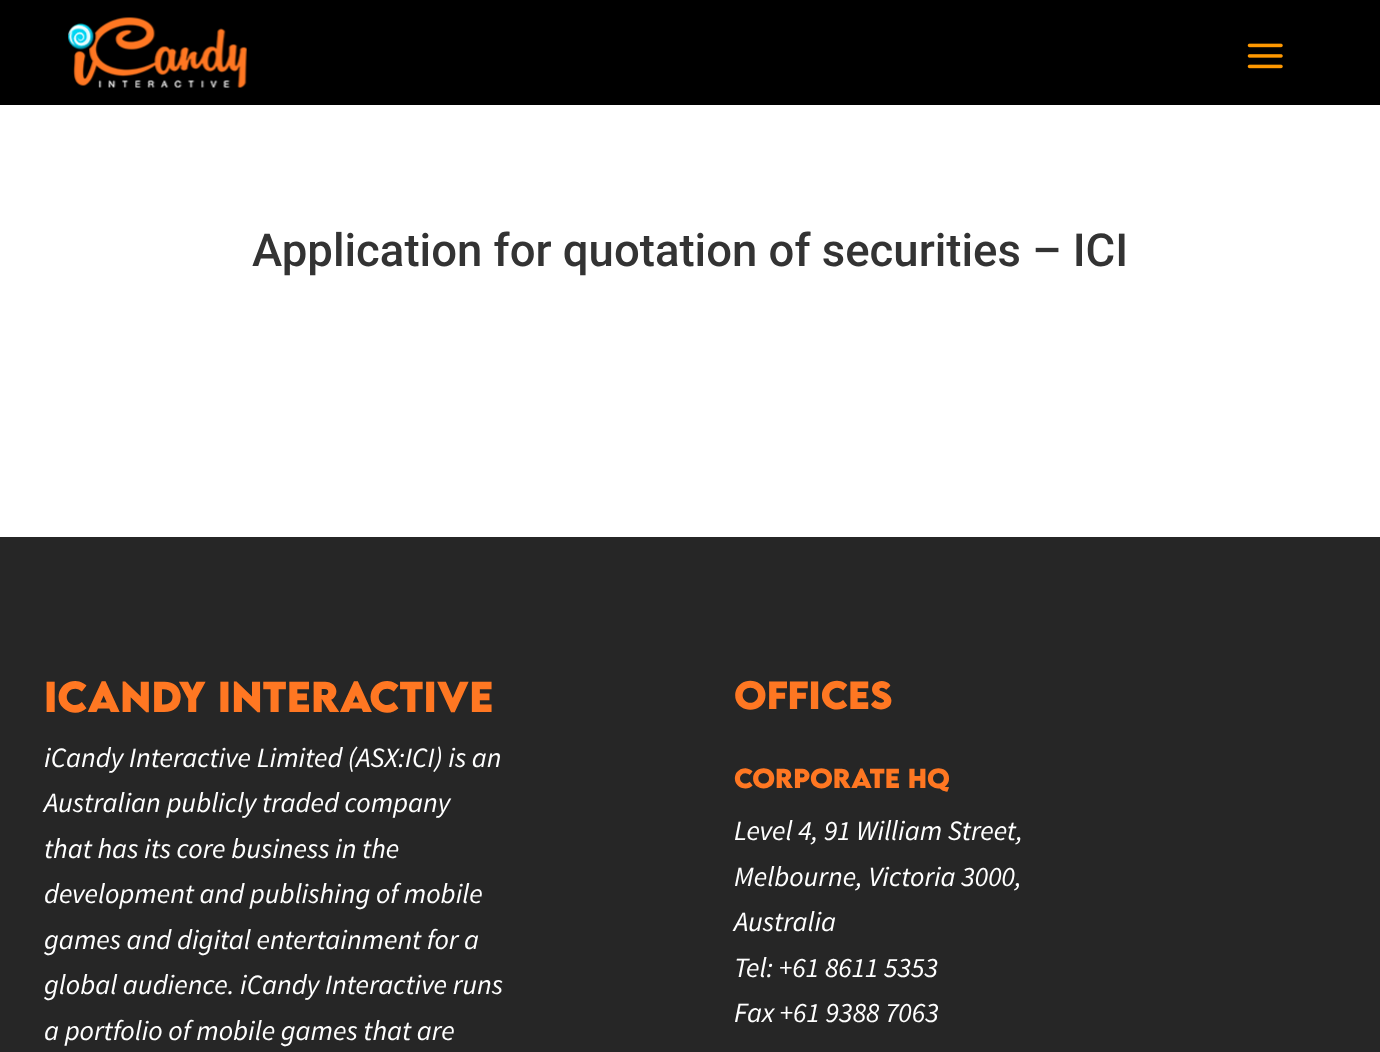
<!DOCTYPE html>
<meta charset="utf-8">
<style>body { margin: 0 } canvas { display: block }</style>
<canvas id="canvas" width="1380" height="1052"></canvas>
<img id="img1" src="images/1.png" hidden>
<img id="img2" src="images/2.png" hidden>
<script>
window.onload = function () {
    const canvas = document.getElementById('canvas');
    const context = canvas.getContext('2d');
    context.miterLimit = 4;
    context.fontKerning = 'normal';

    context.fillStyle = 'rgb(255, 255, 255)';
    context.fillRect(0, 0, 1380, 1052);
    context.fillStyle = 'rgb(0, 0, 0)';
    context.fillRect(0, 0, 1380, 105);
    context.drawImage(document.getElementById('img1'), 68, 17, 179, 71);
    context.drawImage(document.getElementById('img2'), 1247, 43, 36, 26);
    context.fillStyle = 'rgb(38, 38, 38)';
    context.fillRect(0, 537, 1380, 515);
    context.font = '500 45.5px Roboto';
    context.fillStyle = 'rgb(51, 51, 51)';
    context.fillText('Application for quotation of securities – ICI', 252, 266);
    context.font = 'bold 38.5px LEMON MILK';
    context.fillStyle = 'rgb(255, 119, 34)';
    context.fillText('ICANDY INTERACTIVE', 44, 712);
    context.font = 'italic 28px Source Sans Pro';
    context.fillStyle = 'rgb(255, 255, 255)';
    context.fillText('iCandy Interactive Limited (ASX:ICI) is an', 44, 767);
    context.fillText('Australian publicly traded company', 44, 812);
    context.fillText('that has its core business in the', 44, 858);
    context.fillText('development and publishing of mobile', 44, 903);
    context.fillText('games and digital entertainment for a', 44, 949);
    context.fillText('global audience. iCandy Interactive runs', 44, 994);
    context.fillText('a portfolio of mobile games that are', 44, 1040);
    context.font = 'bold 35px LEMON MILK';
    context.fillStyle = 'rgb(255, 119, 34)';
    context.fillText('OFFICES', 734, 709);
    context.font = 'bold 24.5px LEMON MILK';
    context.fillText('Corporate HQ', 734, 788);
    context.font = 'italic 28px Source Sans Pro';
    context.fillStyle = 'rgb(255, 255, 255)';
    context.fillText('Level 4, 91 William Street,', 734, 840);
    context.fillText('Melbourne, Victoria 3000,', 734, 886);
    context.fillText('Australia', 734, 931);
    context.fillText('Tel: +61 8611 5353', 734, 977);
    context.fillText('Fax +61 9388 7063', 734, 1022);
};
</script>
